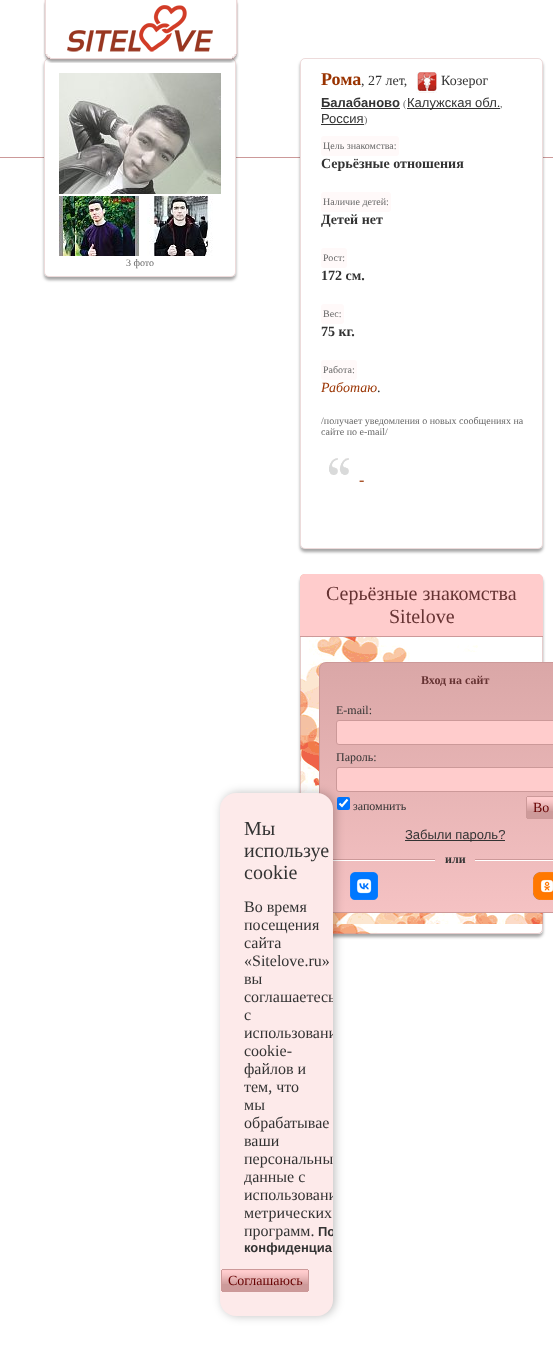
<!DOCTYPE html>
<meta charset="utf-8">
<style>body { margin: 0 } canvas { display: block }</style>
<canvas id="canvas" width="553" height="1356"></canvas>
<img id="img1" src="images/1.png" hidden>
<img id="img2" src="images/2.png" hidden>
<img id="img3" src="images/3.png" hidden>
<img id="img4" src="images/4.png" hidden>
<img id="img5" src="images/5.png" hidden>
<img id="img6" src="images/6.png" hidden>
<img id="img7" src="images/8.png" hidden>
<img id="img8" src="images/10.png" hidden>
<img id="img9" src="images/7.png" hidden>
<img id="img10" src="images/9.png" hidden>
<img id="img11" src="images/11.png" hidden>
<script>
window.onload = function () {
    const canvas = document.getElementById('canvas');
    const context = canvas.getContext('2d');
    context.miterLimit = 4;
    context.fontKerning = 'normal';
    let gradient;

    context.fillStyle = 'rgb(255, 255, 255)';
    context.fillRect(0, 0, 553, 1356);
    context.fillStyle = 'rgb(204, 153, 153)';
    context.fillRect(0, 157, 553, 1);
    context.fillStyle = 'rgba(0, 0, 0, 0.35)';
    context.filter = 'blur(1.5px)';
    context.beginPath();
    context.roundRect(44, 61, 192, 219, 5);
    context.fill();
    context.filter = 'none';
    context.fillStyle = 'rgb(255, 255, 255)';
    context.beginPath();
    context.roundRect(44, 58, 192, 219, 5);
    context.fill();
    context.beginPath();
    context.roundRect(44.5, 58.5, 191, 218, 4.5);
    context.strokeStyle = 'rgba(204, 153, 153, 0.35)';
    context.stroke();
    context.drawImage(document.getElementById('img1'), 43, 0, 196, 63);
    context.drawImage(document.getElementById('img2'), 59, 73, 162, 121);
    context.drawImage(document.getElementById('img3'), 59, 196, 80, 60);
    context.drawImage(document.getElementById('img4'), 147, 196, 66, 60);
    context.fillStyle = 'rgba(0, 0, 0, 0.35)';
    context.filter = 'blur(1.5px)';
    context.beginPath();
    context.roundRect(300, 61, 243, 491, 5);
    context.fill();
    context.filter = 'none';
    context.fillStyle = 'rgb(255, 255, 255)';
    context.beginPath();
    context.roundRect(300, 58, 243, 491, 5);
    context.fill();
    context.beginPath();
    context.roundRect(300.5, 58.5, 242, 490, 4.5);
    context.stroke();
    context.drawImage(document.getElementById('img5'), 416, 72, 21, 21);
    context.fillStyle = 'rgb(51, 51, 51)';
    context.fillRect(321, 108, 79, 1);
    context.fillRect(407, 108, 93, 1);
    context.fillRect(321, 124, 43, 1);
    context.fillStyle = 'rgb(255, 249, 249)';
    context.beginPath();
    context.roundRect(321, 136, 78, 20, 3);
    context.fill();
    context.beginPath();
    context.roundRect(321, 192, 70, 20, 3);
    context.fill();
    context.beginPath();
    context.roundRect(321, 248, 26, 20, 3);
    context.fill();
    context.beginPath();
    context.roundRect(321, 304, 23, 20, 3);
    context.fill();
    context.beginPath();
    context.roundRect(321, 360, 36, 20, 3);
    context.fill();
    context.drawImage(document.getElementById('img6'), 329, 458, 20, 17);
    context.drawImage(document.getElementById('img7'), 300, 574, 243, 360);
    context.save();
    context.beginPath();
    context.moveTo(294, 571);
    context.lineTo(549, 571);
    context.lineTo(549, 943);
    context.lineTo(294, 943);
    context.closePath();
    context.moveTo(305, 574);
    context.lineTo(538, 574);
    context.bezierCurveTo(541, 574, 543, 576, 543, 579);
    context.lineTo(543, 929);
    context.bezierCurveTo(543, 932, 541, 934, 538, 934);
    context.lineTo(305, 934);
    context.bezierCurveTo(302, 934, 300, 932, 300, 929);
    context.lineTo(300, 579);
    context.bezierCurveTo(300, 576, 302, 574, 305, 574);
    context.closePath();
    context.clip('evenodd');
    context.fillStyle = 'rgba(0, 0, 0, 0.35)';
    context.filter = 'blur(1.5px)';
    context.beginPath();
    context.roundRect(300, 577, 243, 360, 5);
    context.fill();
    context.filter = 'none';
    context.restore();
    context.beginPath();
    context.roundRect(300.5, 574.5, 242, 359, 4.5);
    context.strokeStyle = 'rgba(204, 153, 153, 0.5)';
    context.stroke();
    context.save();
    context.beginPath();
    context.roundRect(319, 662, 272, 251, 7);
    context.clip();
    gradient = context.createLinearGradient(455, 663, 455, 912);
    gradient.addColorStop(0, 'rgb(218, 167, 167)');
    gradient.addColorStop(1, 'rgb(245, 194, 195)');
    context.fillStyle = gradient;
    context.fillRect(319, 663, 234, 249);
    context.restore();
    context.beginPath();
    context.roundRect(319.5, 662.5, 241, 250, 6.5);
    context.strokeStyle = 'rgb(204, 153, 153)';
    context.stroke();
    context.fillStyle = 'rgb(255, 204, 204)';
    context.beginPath();
    context.roundRect(336.5, 767.5, 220, 24, 2.5);
    context.fill();
    context.stroke();
    context.fillStyle = 'rgb(0, 117, 255)';
    context.beginPath();
    context.roundRect(337, 797, 13, 13, 2);
    context.fill();
    context.beginPath();
    context.moveTo(339.5, 803.5);
    context.lineTo(342, 806);
    context.lineTo(347.5, 799.5);
    context.strokeStyle = 'rgb(255, 255, 255)';
    context.lineWidth = 2.1;
    context.stroke();
    context.fillStyle = 'rgb(204, 153, 153)';
    context.fillRect(330, 859, 105, 1);
    context.fillStyle = 'rgb(255, 255, 255)';
    context.fillRect(330, 860, 105, 1);
    context.drawImage(document.getElementById('img8'), 350, 872, 28, 28);
    context.fillStyle = 'rgba(0, 0, 0, 0.25)';
    context.filter = 'blur(5px)';
    context.beginPath();
    context.roundRect(222, 793, 113, 523, 16);
    context.fill();
    context.filter = 'none';
    context.fillStyle = 'rgb(253, 234, 234)';
    context.beginPath();
    context.roundRect(220, 793, 113, 523, 16);
    context.fill();
    context.drawImage(document.getElementById('img9'), 222, 1269, 86, 15);
    context.fillStyle = 'rgb(204, 153, 153)';
    context.fillRect(308, 1270, 1, 21);
    context.fillRect(221, 1270, 1, 21);
    context.fillStyle = 'rgb(205, 154, 154)';
    context.fillRect(222, 1284, 86, 7);
    context.fillStyle = 'rgb(204, 153, 153)';
    context.fillRect(222, 1291, 86, 1);
    context.fillStyle = 'rgb(255, 204, 204)';
    context.beginPath();
    context.roundRect(300, 574, 243, 63, [5, 5, 0, 0]);
    context.fill();
    context.fillStyle = 'rgb(204, 153, 153)';
    context.fillRect(300, 636, 243, 1);
    context.fillStyle = 'rgb(255, 204, 204)';
    context.beginPath();
    context.roundRect(336.5, 720.5, 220, 24, 2.5);
    context.fill();
    context.strokeStyle = 'rgb(204, 153, 153)';
    context.lineWidth = 1;
    context.stroke();
    context.drawImage(document.getElementById('img10'), 527, 796, 26, 15);
    context.fillStyle = 'rgb(204, 153, 153)';
    context.fillRect(526, 797, 1, 21);
    context.fillStyle = 'rgb(205, 154, 154)';
    context.fillRect(527, 811, 26, 7);
    context.fillStyle = 'rgb(204, 153, 153)';
    context.fillRect(527, 818, 26, 1);
    context.fillStyle = 'rgb(51, 51, 51)';
    context.fillRect(405, 840, 100, 1);
    context.fillStyle = 'rgb(204, 153, 153)';
    context.fillRect(475, 859, 78, 1);
    context.fillStyle = 'rgb(255, 255, 255)';
    context.fillRect(475, 860, 78, 1);
    context.drawImage(document.getElementById('img11'), 533, 872, 20, 28);
    context.font = '10px Liberation Serif';
    context.fillStyle = 'rgb(102, 102, 102)';
    context.fillText('3 фото', 126, 266);
    context.font = 'bold 18px Liberation Serif';
    context.fillStyle = 'rgb(153, 51, 0)';
    context.fillText('Рома', 321, 85);
    context.font = '14px Liberation Serif';
    context.fillStyle = 'rgb(51, 51, 51)';
    context.fillText(', 27 лет,', 361, 85);
    context.fillText('Козерог', 441, 85);
    context.font = 'bold 13px Liberation Sans';
    context.fillText('Балабаново', 321, 107);
    context.font = '10px Liberation Serif';
    context.fillStyle = 'rgb(102, 102, 102)';
    context.fillText('(', 403, 107);
    context.font = '13px Liberation Sans';
    context.fillStyle = 'rgb(51, 51, 51)';
    context.fillText('Калужская обл.', 407, 107);
    context.font = '10px Liberation Serif';
    context.fillStyle = 'rgb(102, 102, 102)';
    context.fillText(',', 500, 107);
    context.font = '13px Liberation Sans';
    context.fillStyle = 'rgb(51, 51, 51)';
    context.fillText('Россия', 321, 123);
    context.font = '10px Liberation Serif';
    context.fillStyle = 'rgb(102, 102, 102)';
    context.fillText(')', 364, 123);
    context.fillText('Цель знакомства:', 323, 149);
    context.font = 'bold 14px Liberation Serif';
    context.fillStyle = 'rgb(51, 51, 51)';
    context.fillText('Серьёзные отношения', 321, 168);
    context.font = '10px Liberation Serif';
    context.fillStyle = 'rgb(102, 102, 102)';
    context.fillText('Наличие детей:', 323, 205);
    context.font = 'bold 14px Liberation Serif';
    context.fillStyle = 'rgb(51, 51, 51)';
    context.fillText('Детей нет', 321, 224);
    context.font = '10px Liberation Serif';
    context.fillStyle = 'rgb(102, 102, 102)';
    context.fillText('Рост:', 323, 261);
    context.font = 'bold 14px Liberation Serif';
    context.fillStyle = 'rgb(51, 51, 51)';
    context.fillText('172 см.', 321, 280);
    context.font = '10px Liberation Serif';
    context.fillStyle = 'rgb(102, 102, 102)';
    context.fillText('Вес:', 323, 317);
    context.font = 'bold 14px Liberation Serif';
    context.fillStyle = 'rgb(51, 51, 51)';
    context.fillText('75 кг.', 321, 336);
    context.font = '10px Liberation Serif';
    context.fillStyle = 'rgb(102, 102, 102)';
    context.fillText('Работа:', 323, 373);
    context.font = 'italic 14px Liberation Serif';
    context.fillStyle = 'rgb(153, 51, 0)';
    context.fillText('Работаю', 321, 392);
    context.font = '14px Liberation Serif';
    context.fillStyle = 'rgb(51, 51, 51)';
    context.fillText('.', 377, 392);
    context.font = '10px Liberation Serif';
    context.fillStyle = 'rgb(102, 102, 102)';
    context.fillText('/получает уведомления о новых сообщениях на', 321, 424);
    context.fillText('сайте по e-mail/', 321, 435);
    context.font = 'italic 16px Liberation Serif';
    context.fillStyle = 'rgb(153, 51, 0)';
    context.fillText('-', 359, 485);
    context.font = '20px Liberation Serif';
    context.fillStyle = 'rgb(51, 51, 51)';
    context.fillText('Мы', 244, 835);
    context.fillText('используе', 244, 857);
    context.fillText('сookie', 244, 879);
    context.font = '16px Liberation Serif';
    context.fillText('Во время', 244, 912);
    context.fillText('посещения', 244, 930);
    context.fillText('сайта', 244, 948);
    context.fillText('«Sitelove.ru»', 244, 966);
    context.fillText('вы', 244, 984);
    context.save();
    context.beginPath();
    context.roundRect(220, 793, 113, 523, 16);
    context.clip();
    context.fillText('соглашаетесь', 244, 1002);
    context.restore();
    context.fillText('с', 244, 1020);
    context.save();
    context.beginPath();
    context.roundRect(220, 793, 113, 523, 16);
    context.clip();
    context.fillText('использовани', 244, 1038);
    context.restore();
    context.fillText('cookie-', 244, 1056);
    context.fillText('файлов и', 244, 1074);
    context.fillText('тем, что', 244, 1092);
    context.fillText('мы', 244, 1110);
    context.fillText('обрабатывае', 244, 1128);
    context.fillText('ваши', 244, 1146);
    context.fillText('персональны', 244, 1164);
    context.fillText('данные с', 244, 1182);
    context.save();
    context.beginPath();
    context.roundRect(220, 793, 113, 523, 16);
    context.clip();
    context.fillText('использовани', 244, 1200);
    context.restore();
    context.fillText('метрических', 244, 1218);
    context.fillText('программ.', 244, 1236);
    context.save();
    context.beginPath();
    context.roundRect(220, 793, 113, 523, 16);
    context.clip();
    context.font = 'bold 13px Liberation Sans';
    context.fillText('По', 318, 1236);
    context.restore();
    context.font = 'bold 13px Liberation Sans';
    context.fillText('конфиденциа', 244, 1252);
    context.font = '14px Liberation Serif';
    context.fillStyle = 'rgb(102, 0, 0)';
    context.fillText('Соглашаюсь', 228, 1285);
    context.font = '20px Liberation Serif';
    context.fillStyle = 'rgb(102, 51, 51)';
    context.fillText('Серьёзные знакомства', 326, 600);
    context.fillText('Sitelove', 389, 623);
    context.font = 'bold 12px Liberation Serif';
    context.fillText('Вход на сайт', 421, 684);
    context.font = '12px Liberation Serif';
    context.fillStyle = 'rgb(51, 51, 51)';
    context.fillText('E-mail:', 336, 714);
    context.fillText('Пароль:', 336, 761);
    context.fillText('запомнить', 353, 810);
    context.font = '14px Liberation Serif';
    context.fillStyle = 'rgb(102, 0, 0)';
    context.fillText('Во', 533, 812);
    context.font = '13px Liberation Sans';
    context.fillStyle = 'rgb(51, 51, 51)';
    context.fillText('Забыли пароль?', 405, 839);
    context.font = 'bold 12px Liberation Serif';
    context.fillText('или', 445, 863);
};
</script>
